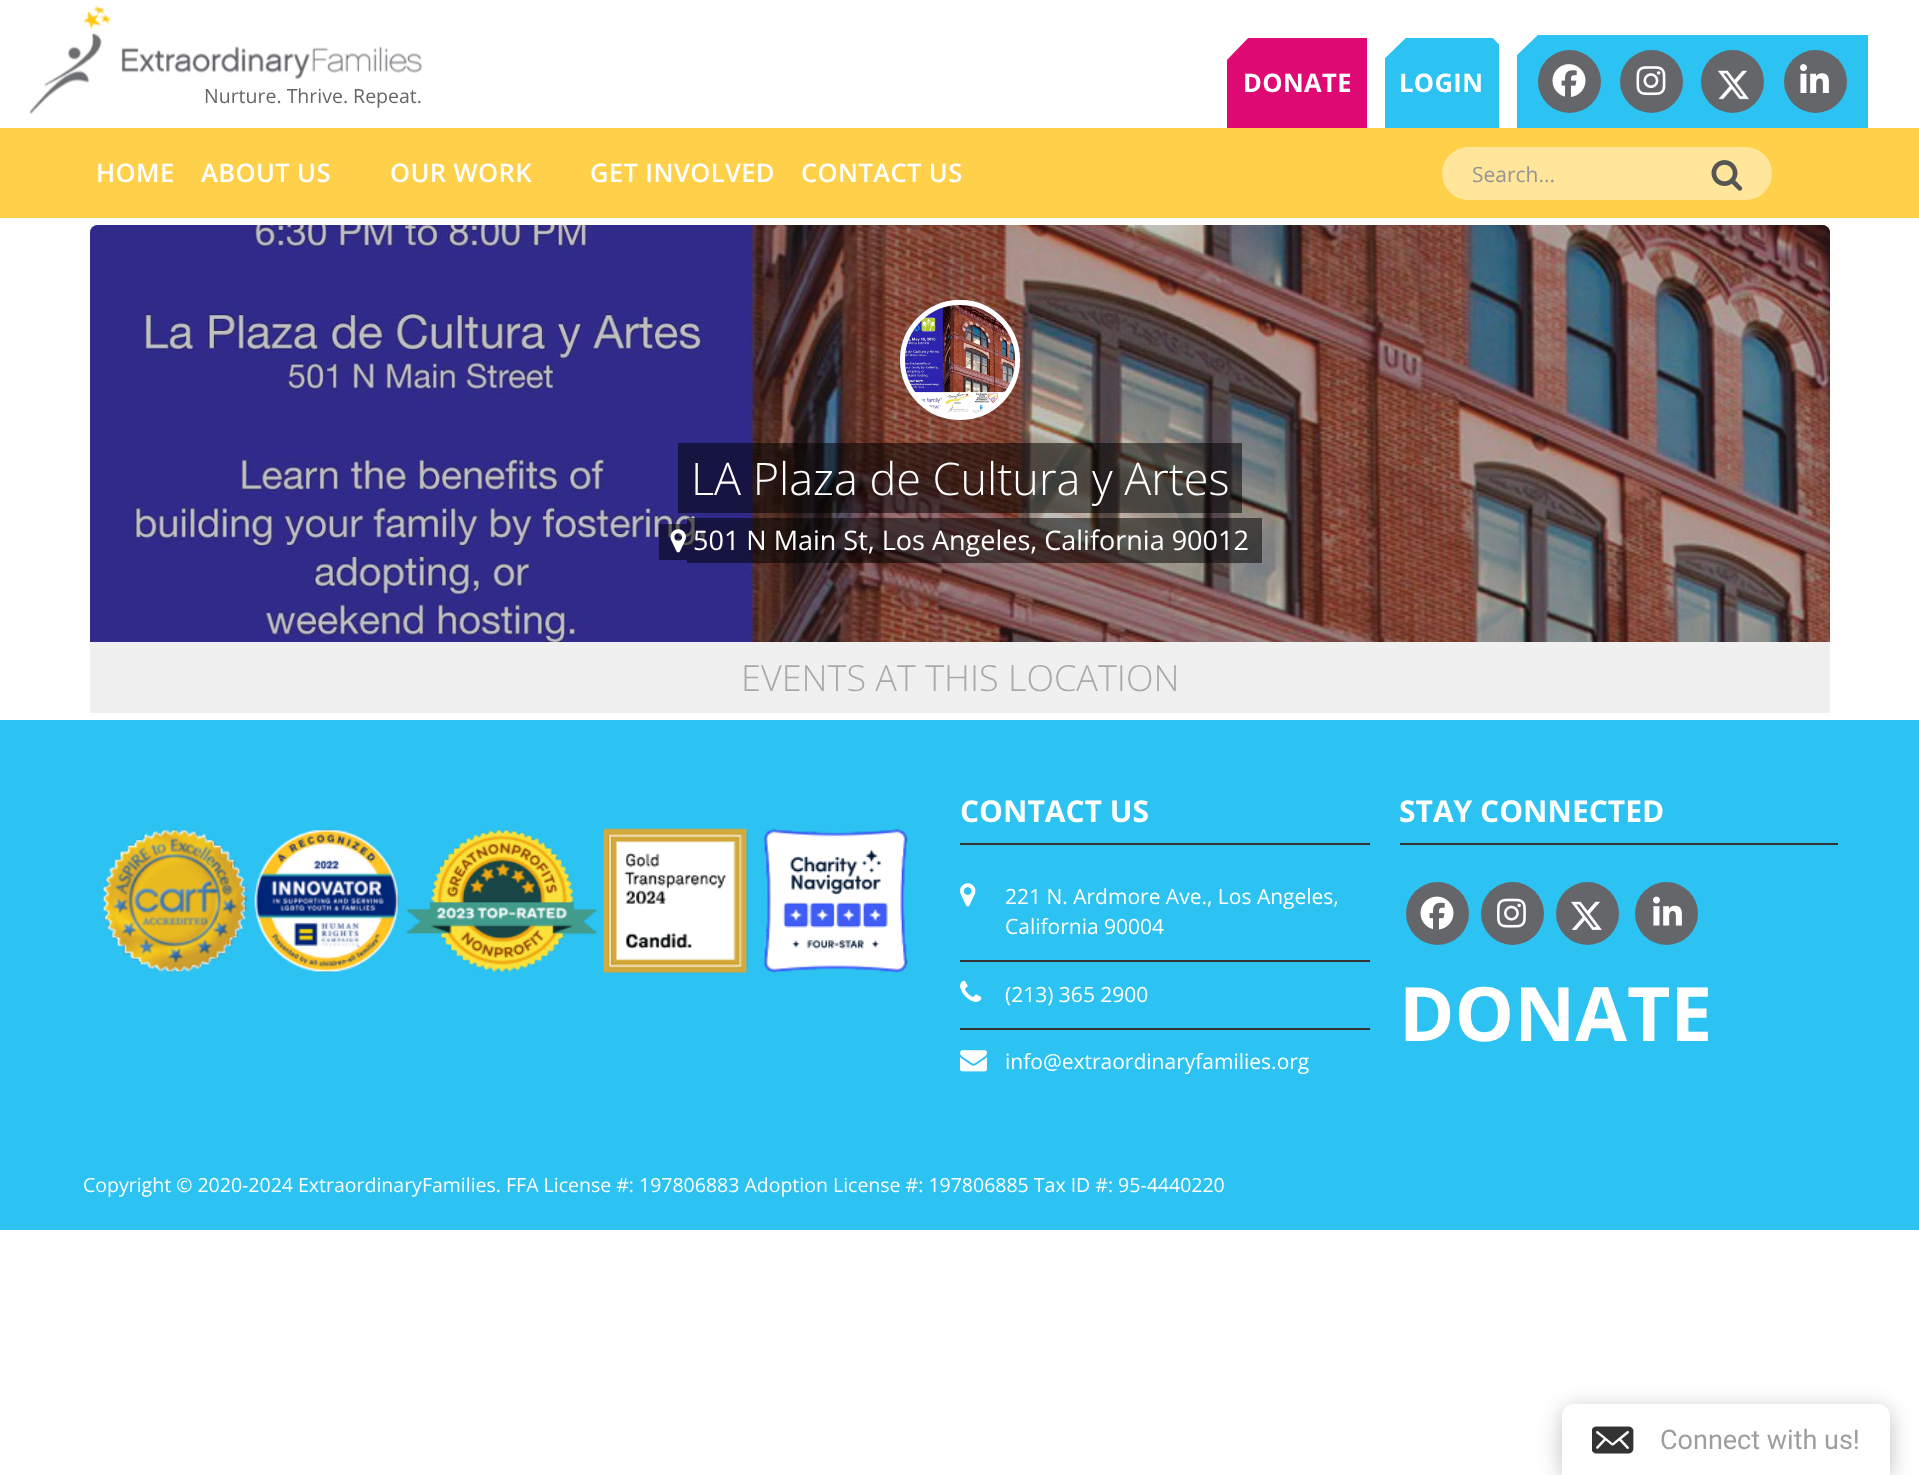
<!DOCTYPE html>
<meta charset="utf-8">
<style>body { margin: 0 } canvas { display: block }</style>
<canvas id="canvas" width="1919" height="1475"></canvas>
<img id="img1" src="images/1.png" hidden>
<img id="img2" src="images/2.png" hidden>
<img id="img3" src="images/3.png" hidden>
<img id="img4" src="images/4.png" hidden>
<img id="img5" src="images/5.png" hidden>
<img id="img6" src="images/6.png" hidden>
<img id="img7" src="images/7.png" hidden>
<img id="img8" src="images/8.png" hidden>
<img id="img9" src="images/9.png" hidden>
<img id="img10" src="images/10.png" hidden>
<img id="img11" src="images/11.png" hidden>
<img id="img12" src="images/12.png" hidden>
<img id="img13" src="images/13.png" hidden>
<img id="img14" src="images/14.png" hidden>
<img id="img15" src="images/15.png" hidden>
<img id="img16" src="images/16.png" hidden>
<img id="img17" src="images/17.png" hidden>
<img id="img18" src="images/18.png" hidden>
<script>
window.onload = function () {
    const canvas = document.getElementById('canvas');
    const context = canvas.getContext('2d');
    context.miterLimit = 4;
    context.fontKerning = 'normal';

    context.fillStyle = 'rgb(255, 255, 255)';
    context.fillRect(0, 0, 1919, 1475);
    context.fillStyle = 'rgb(44, 194, 241)';
    context.fillRect(1385, 38, 114, 90);
    context.fillStyle = 'rgb(255, 255, 255)';
    context.beginPath();
    context.moveTo(1409, 35);
    context.lineTo(1381, 62);
    context.lineTo(1354, 34);
    context.lineTo(1381, 7);
    context.closePath();
    context.fill();
    context.fillStyle = 'rgb(223, 9, 115)';
    context.fillRect(1227, 38, 140, 90);
    context.fillStyle = 'rgb(255, 255, 255)';
    context.beginPath();
    context.moveTo(1252, 34);
    context.lineTo(1225, 62);
    context.lineTo(1197, 34);
    context.lineTo(1225, 7);
    context.closePath();
    context.fill();
    context.fillStyle = 'rgb(44, 194, 241)';
    context.fillRect(1517, 35, 351, 93);
    context.fillStyle = 'rgb(101, 102, 105)';
    context.beginPath();
    context.arc(1569.5, 81.5, 31.5, 0, 2 * Math.PI);
    context.fill();
    context.fillStyle = 'rgb(255, 255, 255)';
    context.beginPath();
    context.moveTo(1541, 32);
    context.lineTo(1513, 59);
    context.lineTo(1486, 31);
    context.lineTo(1513, 4);
    context.closePath();
    context.fill();
    context.drawImage(document.getElementById('img1'), 1552, 64, 34, 33);
    context.fillStyle = 'rgb(101, 102, 105)';
    context.beginPath();
    context.arc(1651.5, 81.5, 31.5, 0, 2 * Math.PI);
    context.fill();
    context.drawImage(document.getElementById('img2'), 1636, 66, 30, 30);
    context.beginPath();
    context.arc(1732.5, 81.5, 31.5, 0, 2 * Math.PI);
    context.fill();
    context.drawImage(document.getElementById('img3'), 1718, 70, 31, 30);
    context.beginPath();
    context.arc(1815.5, 81.5, 31.5, 0, 2 * Math.PI);
    context.fill();
    context.drawImage(document.getElementById('img4'), 1800, 64, 29, 29);
    context.drawImage(document.getElementById('img5'), 30, 5, 392, 110);
    context.fillStyle = 'rgb(255, 209, 74)';
    context.fillRect(0, 128, 1919, 90);
    context.fillStyle = 'rgb(255, 230, 155)';
    context.beginPath();
    context.roundRect(1442, 147, 330, 53, 26.5);
    context.fill();
    context.drawImage(document.getElementById('img6'), 1711, 160, 32, 31);
    context.drawImage(document.getElementById('img7'), 90, 225, 1740, 417);
    context.fillStyle = 'rgba(61, 61, 61, 0.3)';
    context.beginPath();
    context.roundRect(90, 225, 1740, 417, [8, 8, 0, 0]);
    context.fill();
    context.drawImage(document.getElementById('img8'), 900, 300, 120, 120);
    context.beginPath();
    context.arc(960, 360, 57.5, 0, 2 * Math.PI);
    context.strokeStyle = 'rgb(255, 255, 255)';
    context.lineWidth = 5;
    context.stroke();
    context.fillStyle = 'rgba(0, 0, 0, 0.53)';
    context.fillRect(678, 443, 564, 70);
    context.fillRect(659, 524, 28, 36);
    context.fillRect(687, 518, 575, 45);
    context.drawImage(document.getElementById('img9'), 670, 529, 16, 24);
    context.fillStyle = 'rgb(240, 240, 240)';
    context.fillRect(90, 642, 1740, 71);
    context.fillStyle = 'rgb(44, 194, 241)';
    context.fillRect(0, 720, 1919, 510);
    context.drawImage(document.getElementById('img10'), 103, 828, 805, 145);
    context.fillStyle = 'rgb(51, 51, 51)';
    context.fillRect(960, 843, 410, 2);
    context.fillRect(960, 960, 410, 2);
    context.drawImage(document.getElementById('img11'), 960, 883, 16, 24);
    context.fillRect(960, 1028, 410, 2);
    context.drawImage(document.getElementById('img12'), 960, 980, 22, 22);
    context.drawImage(document.getElementById('img13'), 960, 1050, 27, 22);
    context.fillRect(1400, 843, 438, 2);
    context.fillStyle = 'rgb(101, 102, 105)';
    context.beginPath();
    context.arc(1437.5, 913.5, 31.5, 0, 2 * Math.PI);
    context.fill();
    context.drawImage(document.getElementById('img14'), 1420, 896, 34, 34);
    context.beginPath();
    context.arc(1512.5, 913.5, 31.5, 0, 2 * Math.PI);
    context.fill();
    context.drawImage(document.getElementById('img15'), 1497, 898, 29, 30);
    context.beginPath();
    context.arc(1587.5, 913.5, 31.5, 0, 2 * Math.PI);
    context.fill();
    context.drawImage(document.getElementById('img16'), 1571, 901, 31, 29);
    context.beginPath();
    context.arc(1666.5, 913.5, 31.5, 0, 2 * Math.PI);
    context.fill();
    context.drawImage(document.getElementById('img17'), 1653, 896, 29, 30);
    context.fillStyle = 'rgba(0, 0, 0, 0.25)';
    context.filter = 'blur(11px)';
    context.beginPath();
    context.roundRect(1562, 1409, 328, 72, 12);
    context.fill();
    context.filter = 'none';
    context.fillStyle = 'rgb(255, 255, 255)';
    context.beginPath();
    context.moveTo(1574, 1404);
    context.lineTo(1878, 1404);
    context.bezierCurveTo(1884.5, 1404, 1890, 1409.5, 1890, 1416);
    context.lineTo(1890, 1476);
    context.lineTo(1562, 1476);
    context.lineTo(1562, 1416);
    context.bezierCurveTo(1562, 1409.5, 1567.5, 1404, 1574, 1404);
    context.closePath();
    context.fill();
    context.drawImage(document.getElementById('img18'), 1592, 1426, 42, 28);
    context.letterSpacing = '0.4px';
    context.font = 'bold 25.5px Open Sans';
    context.fillText('DONATE', 1243, 92);
    context.fillText('LOGIN', 1399, 92);
    context.letterSpacing = '0px';
    context.font = '19.5px Open Sans';
    context.fillStyle = 'rgb(101, 102, 106)';
    context.fillText('Nurture. Thrive. Repeat.', 204, 103);
    context.letterSpacing = '0.4px';
    context.font = '600 25.5px Open Sans';
    context.fillStyle = 'rgb(255, 255, 255)';
    context.fillText('HOME', 96, 182);
    context.fillText('ABOUT US', 201, 182);
    context.fillText('OUR WORK', 390, 182);
    context.fillText('GET INVOLVED', 590, 182);
    context.fillText('CONTACT US', 801, 182);
    context.letterSpacing = '0px';
    context.font = '21px Open Sans';
    context.fillStyle = 'rgb(149, 149, 149)';
    context.fillText('Search...', 1472, 182);
    context.font = '300 45px Open Sans';
    context.fillStyle = 'rgb(255, 255, 255)';
    context.fillText('LA Plaza de Cultura y Artes', 691, 495);
    context.font = '27px Open Sans';
    context.fillText('501 N Main St, Los Angeles, California 90012', 693, 550);
    context.font = '300 36px Open Sans';
    context.fillStyle = 'rgb(169, 169, 169)';
    context.fillText('EVENTS AT THIS LOCATION', 741, 691);
    context.font = 'bold 30px Open Sans';
    context.fillStyle = 'rgb(255, 255, 255)';
    context.fillText('CONTACT US', 960, 822);
    context.font = '21px Open Sans';
    context.fillText('221 N. Ardmore Ave., Los Angeles,', 1005, 904);
    context.fillText('California 90004', 1005, 934);
    context.fillText('(213) 365 2900', 1005, 1002);
    context.fillText('info@extraordinaryfamilies.org', 1005, 1069);
    context.font = 'bold 30px Open Sans';
    context.fillText('STAY CONNECTED', 1399, 822);
    context.font = 'bold 75px Open Sans';
    context.fillText('DONATE', 1399, 1041);
    context.font = '19.5px Open Sans';
    context.fillText('Copyright © 2020-2024 ExtraordinaryFamilies. FFA License #: 197806883 Adoption License #: 197806885 Tax ID #: 95-4440220', 83, 1192);
    context.font = '27px Roboto';
    context.fillStyle = 'rgb(158, 158, 158)';
    context.fillText('Connect with us!', 1660, 1449);
};
</script>
